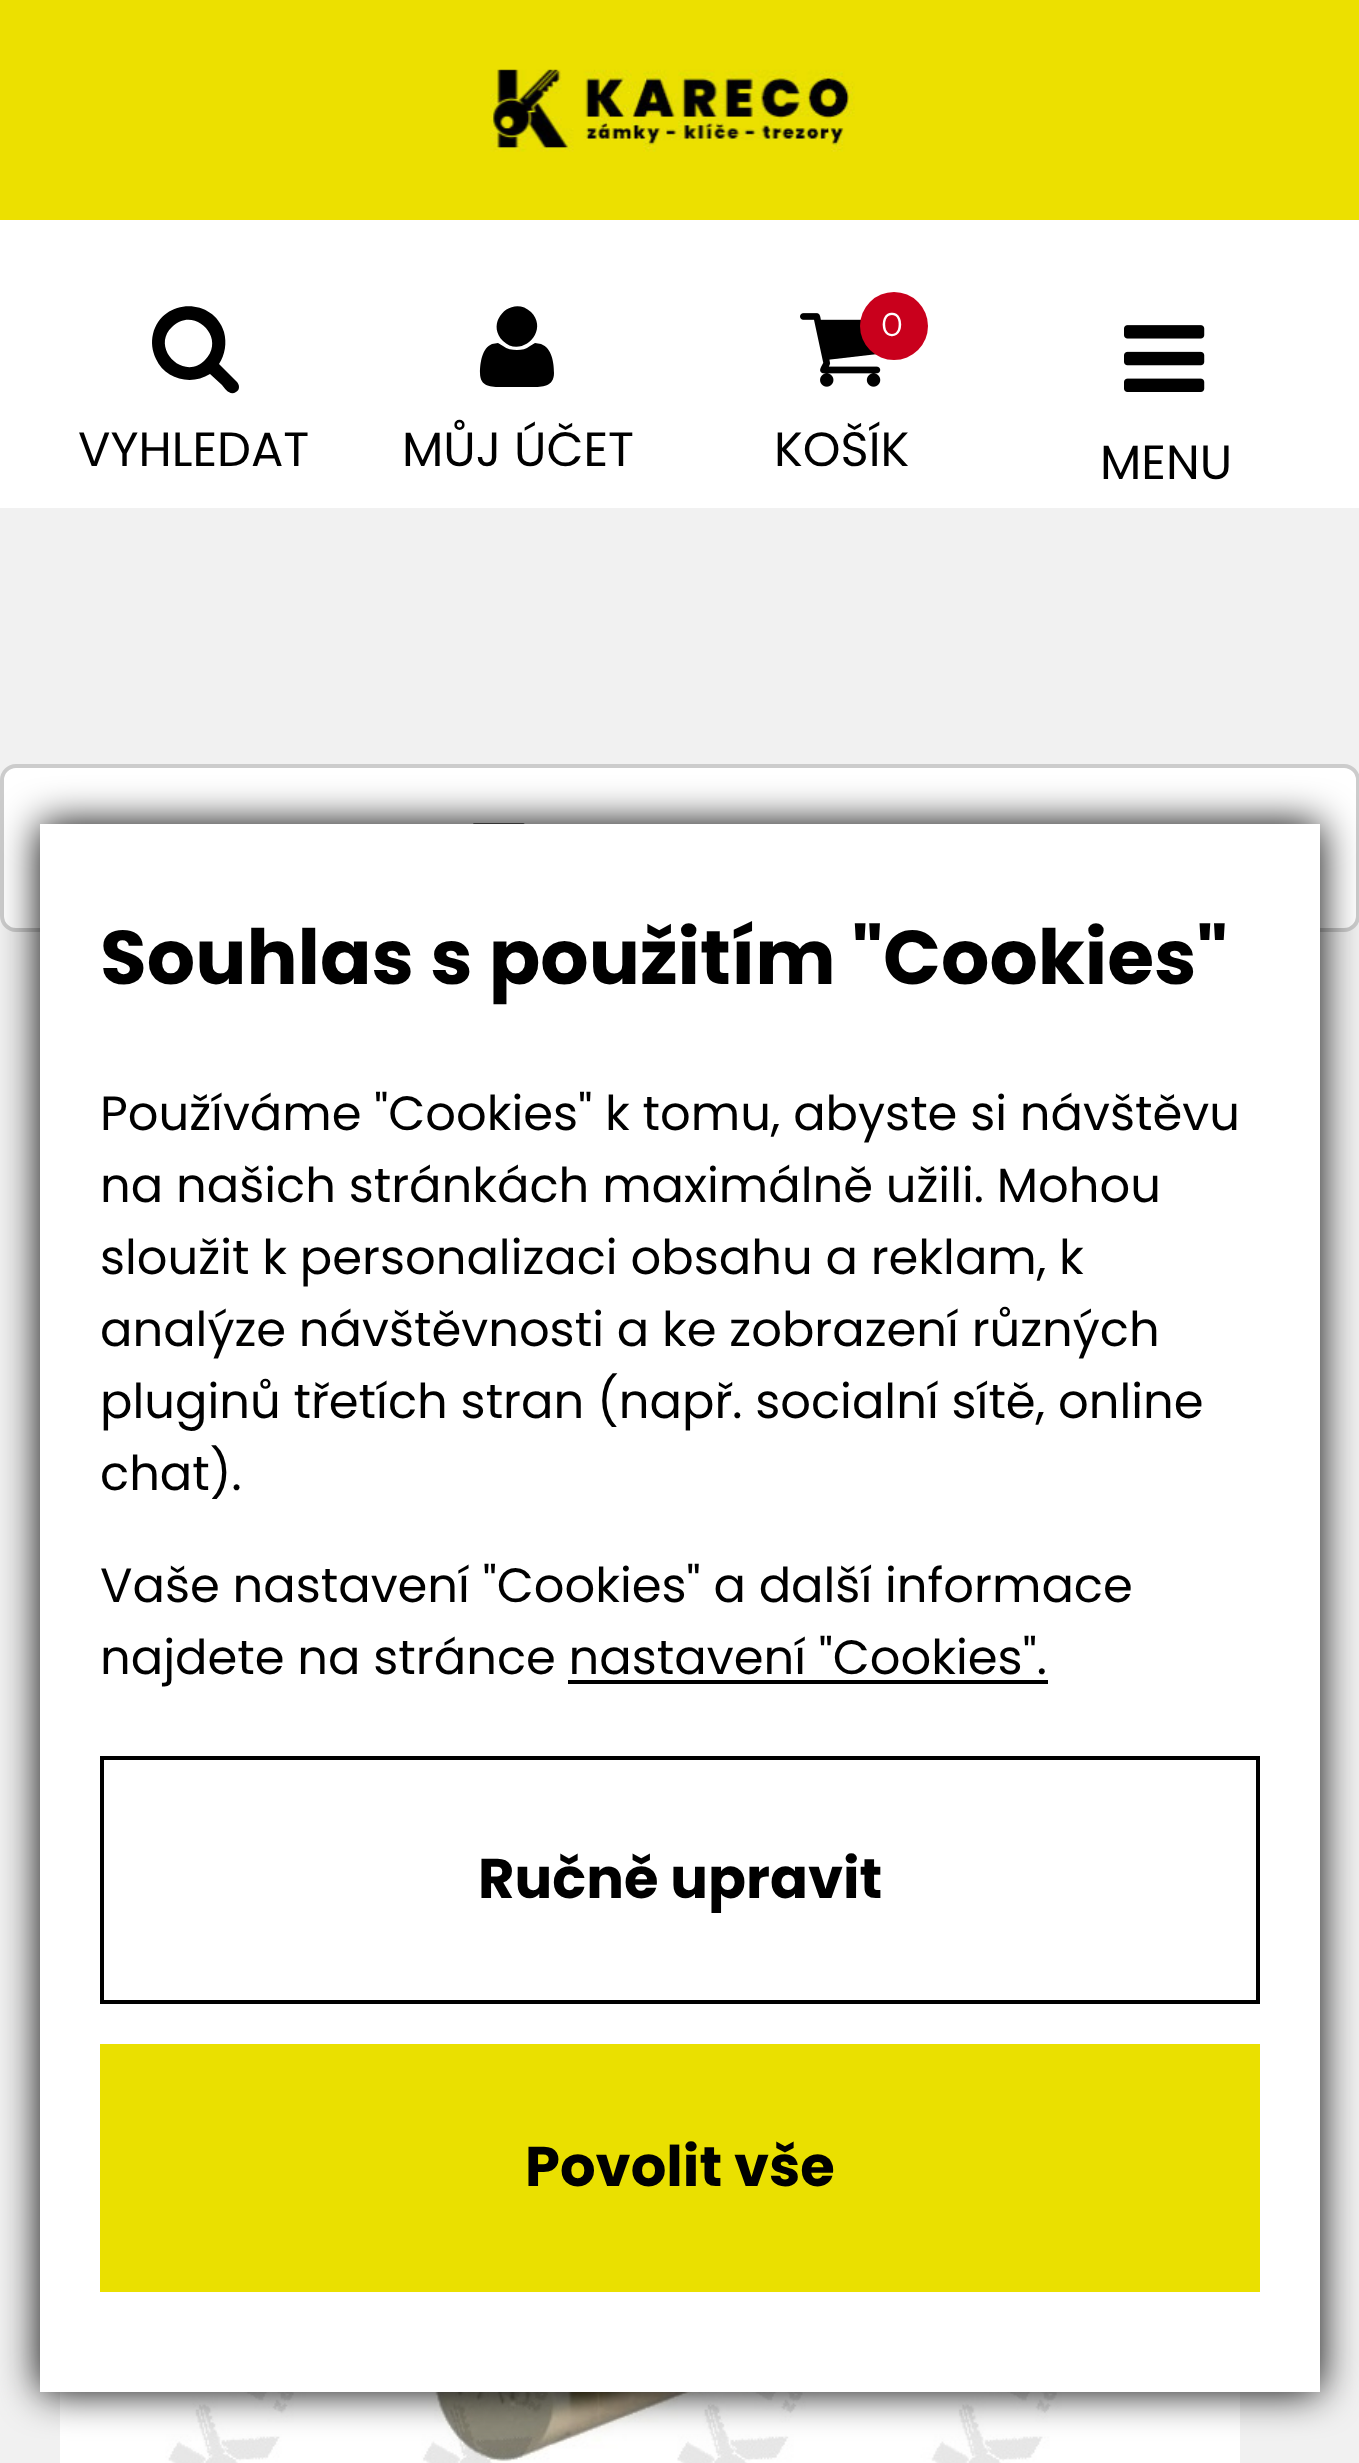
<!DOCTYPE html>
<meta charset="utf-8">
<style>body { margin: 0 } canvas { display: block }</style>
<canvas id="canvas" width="1359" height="2463"></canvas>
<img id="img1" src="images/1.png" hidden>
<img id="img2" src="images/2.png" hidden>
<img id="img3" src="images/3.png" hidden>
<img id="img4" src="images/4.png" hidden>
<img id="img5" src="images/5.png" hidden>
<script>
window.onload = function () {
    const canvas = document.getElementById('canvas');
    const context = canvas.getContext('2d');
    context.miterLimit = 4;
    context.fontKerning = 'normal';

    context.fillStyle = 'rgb(241, 241, 241)';
    context.fillRect(0, 0, 1359, 2463);
    context.fillStyle = 'rgb(255, 255, 255)';
    context.fillRect(0, 220, 1359, 288);
    context.fillStyle = 'rgb(236, 224, 0)';
    context.fillRect(0, 0, 1359, 220);
    context.drawImage(document.getElementById('img1'), 490, 69, 365, 83);
    context.fillStyle = 'rgb(0, 0, 0)';
    context.beginPath();
    context.moveTo(205, 360);
    context.bezierCurveTo(227, 338, 194, 305, 172, 327);
    context.bezierCurveTo(150, 348, 184, 382, 205, 360);
    context.closePath();
    context.moveTo(239, 387);
    context.bezierCurveTo(239, 389, 238, 391, 236, 392);
    context.bezierCurveTo(230, 396, 225, 389, 222, 385);
    context.lineTo(210, 374);
    context.bezierCurveTo(191, 386, 165, 379, 156, 359);
    context.bezierCurveTo(152, 351, 151, 342, 153, 334);
    context.bezierCurveTo(162, 298, 213, 297, 224, 332);
    context.bezierCurveTo(227, 343, 225, 355, 219, 364);
    context.lineTo(237, 382);
    context.bezierCurveTo(238, 383, 239, 385, 239, 387);
    context.closePath();
    context.fill();
    context.beginPath();
    context.moveTo(554, 373);
    context.bezierCurveTo(554, 387, 542, 387, 532, 387);
    context.lineTo(502, 387);
    context.bezierCurveTo(491, 387, 480, 387, 480, 373);
    context.bezierCurveTo(480, 363, 482, 348, 492, 344);
    context.lineTo(498, 343);
    context.lineTo(503, 346);
    context.bezierCurveTo(507, 349, 512, 350, 517, 350);
    context.bezierCurveTo(522, 350, 526, 349, 530, 346);
    context.lineTo(535, 343);
    context.lineTo(541, 344);
    context.bezierCurveTo(552, 348, 554, 363, 554, 373);
    context.closePath();
    context.moveTo(531, 312);
    context.bezierCurveTo(550, 331, 521, 359, 503, 341);
    context.bezierCurveTo(484, 322, 512, 294, 531, 312);
    context.closePath();
    context.fill();
    context.drawImage(document.getElementById('img2'), 800, 313, 81, 74);
    context.fillStyle = 'rgb(201, 0, 28)';
    context.beginPath();
    context.arc(894, 326, 34, 0, 2 * Math.PI);
    context.fill();
    context.drawImage(document.getElementById('img3'), 1124, 325, 81, 67);
    context.fillStyle = 'rgb(255, 255, 255)';
    context.beginPath();
    context.roundRect(2, 766, 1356, 164, 14);
    context.fill();
    context.strokeStyle = 'rgb(204, 204, 204)';
    context.lineWidth = 4;
    context.stroke();
    context.drawImage(document.getElementById('img4'), 473, 823, 52, 1);
    context.fillRect(60, 2392, 1180, 71);
    context.drawImage(document.getElementById('img5'), 140, 2392, 960, 71);
    context.fillStyle = 'rgb(0, 0, 0)';
    context.filter = 'blur(20px)';
    context.beginPath();
    context.rect(40, 824, 1280, 1568);
    context.fill();
    context.filter = 'none';
    context.fillStyle = 'rgb(255, 255, 255)';
    context.fillRect(40, 824, 1280, 1568);
    context.fillStyle = 'rgb(0, 0, 0)';
    context.fillRect(568, 1680, 480, 4);
    context.strokeStyle = 'rgb(0, 0, 0)';
    context.strokeRect(102, 1758, 1156, 244);
    context.fillStyle = 'rgb(234, 224, 0)';
    context.fillRect(100, 2044, 1160, 248);
    context.font = '48px Poppins';
    context.fillStyle = 'rgb(0, 0, 0)';
    context.fillText('VYHLEDAT', 78, 466);
    context.fillText('MŮJ ÚČET', 402, 466);
    context.font = '33px Montserrat';
    context.fillStyle = 'rgb(255, 255, 255)';
    context.fillText('0', 881, 336);
    context.font = '48px Poppins';
    context.fillStyle = 'rgb(0, 0, 0)';
    context.fillText('KOŠÍK', 774, 466);
    context.fillText('MENU', 1100, 479);
    context.font = 'bold 76px Poppins';
    context.fillText('Souhlas s použitím "Cookies"', 100, 984);
    context.font = '48px Poppins';
    context.fillText('Používáme "Cookies" k tomu, abyste si návštěvu', 100, 1130);
    context.fillText('na našich stránkách maximálně užili. Mohou', 100, 1202);
    context.fillText('sloužit k personalizaci obsahu a reklam, k', 100, 1274);
    context.fillText('analýze návštěvnosti a ke zobrazení různých', 100, 1346);
    context.fillText('pluginů třetích stran (např. socialní sítě, online', 100, 1418);
    context.fillText('chat).', 100, 1490);
    context.fillText('Vaše nastavení "Cookies" a další informace', 100, 1602);
    context.fillText('najdete na stránce nastavení "Cookies".', 100, 1674);
    context.font = 'bold 56px Poppins';
    context.fillText('Ručně upravit', 478, 1898);
    context.fillText('Povolit vše', 525, 2186);
};
</script>
